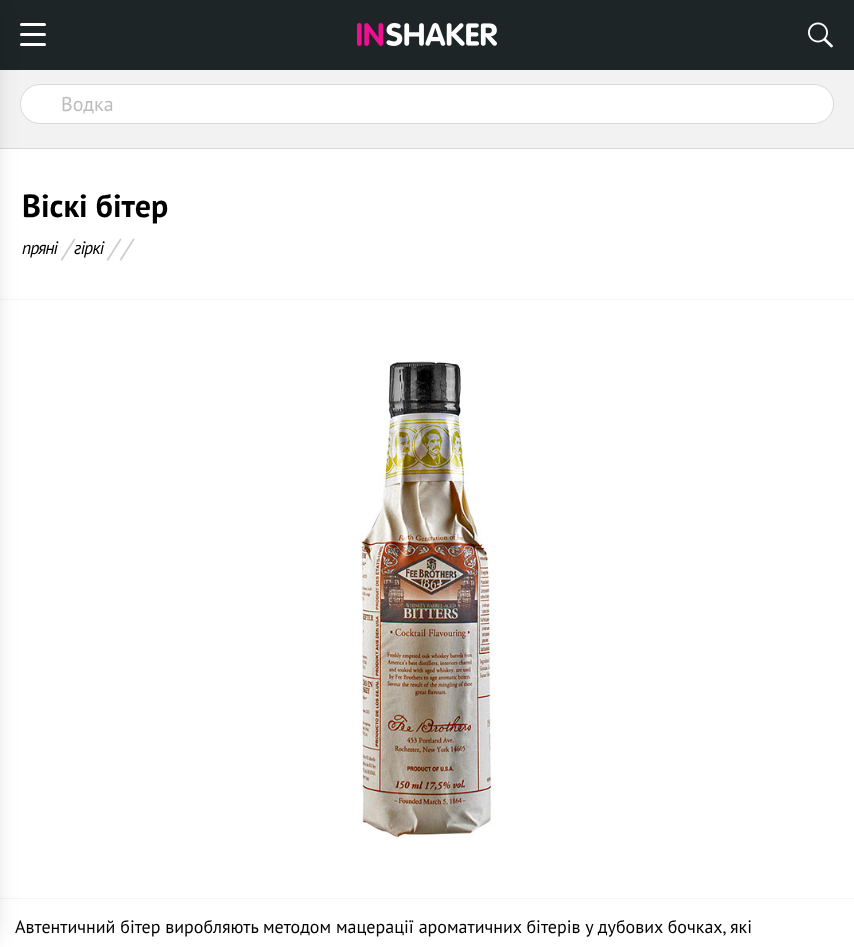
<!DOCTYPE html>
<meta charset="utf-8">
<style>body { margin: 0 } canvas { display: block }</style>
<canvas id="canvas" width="854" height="947"></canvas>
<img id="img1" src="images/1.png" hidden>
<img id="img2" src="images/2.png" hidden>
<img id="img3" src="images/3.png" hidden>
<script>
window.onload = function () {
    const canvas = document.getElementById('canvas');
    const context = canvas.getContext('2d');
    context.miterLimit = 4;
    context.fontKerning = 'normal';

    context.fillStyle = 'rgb(242, 242, 242)';
    context.fillRect(0, 0, 854, 947);
    context.fillStyle = 'rgb(29, 37, 39)';
    context.fillRect(0, 0, 854, 70);
    context.fillStyle = 'rgb(255, 255, 255)';
    context.beginPath();
    context.roundRect(20, 23, 26, 3, 1.5);
    context.fill();
    context.beginPath();
    context.roundRect(20, 33, 26, 3, 1.5);
    context.fill();
    context.beginPath();
    context.roundRect(20, 43, 26, 3, 1.5);
    context.fill();
    context.drawImage(document.getElementById('img1'), 357, 23, 140, 23);
    context.drawImage(document.getElementById('img2'), 808, 22, 25, 26);
    context.fillStyle = 'rgb(218, 218, 218)';
    context.fillRect(0, 148, 854, 1);
    context.fillStyle = 'rgb(255, 255, 255)';
    context.beginPath();
    context.roundRect(20.5, 84.5, 813, 39, 19.5);
    context.fill();
    context.strokeStyle = 'rgb(217, 217, 217)';
    context.stroke();
    context.fillRect(0, 149, 854, 798);
    context.fillStyle = 'rgb(245, 245, 245)';
    context.fillRect(0, 299, 854, 1);
    context.fillRect(0, 898, 854, 1);
    context.fillStyle = 'rgba(0, 0, 0, 0.2)';
    context.filter = 'blur(12px)';
    context.beginPath();
    context.rect(-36, 10, 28, 927);
    context.fill();
    context.filter = 'none';
    context.drawImage(document.getElementById('img3'), 360, 360, 134, 478);
    context.font = '20px PT Sans';
    context.fillStyle = 'rgb(188, 188, 188)';
    context.fillText('Водка', 61, 111);
    context.font = 'bold 32px PT Sans';
    context.fillStyle = 'rgb(0, 0, 0)';
    context.fillText('Віскі бітер', 22, 217);
    context.letterSpacing = '-1.25px';
    context.font = 'italic 18px PT Sans';
    context.fillText('пряні', 22, 254);
    context.letterSpacing = '-5px';
    context.font = 'italic 26px PT Sans';
    context.fillStyle = 'rgb(204, 204, 204)';
    context.fillText('/', 63, 257);
    context.letterSpacing = '-1px';
    context.font = 'italic 18px PT Sans';
    context.fillStyle = 'rgb(0, 0, 0)';
    context.fillText('гіркі', 74, 254);
    context.letterSpacing = '-5px';
    context.font = 'italic 26px PT Sans';
    context.fillStyle = 'rgb(204, 204, 204)';
    context.fillText('/', 109, 257);
    context.fillText('/', 122, 257);
    context.letterSpacing = '0px';
    context.font = '18px PT Sans';
    context.fillStyle = 'rgb(0, 0, 0)';
    context.fillText('Автентичний бітер виробляють методом мацерації ароматичних бітерів у дубових бочках, які', 15, 933);
};
</script>
